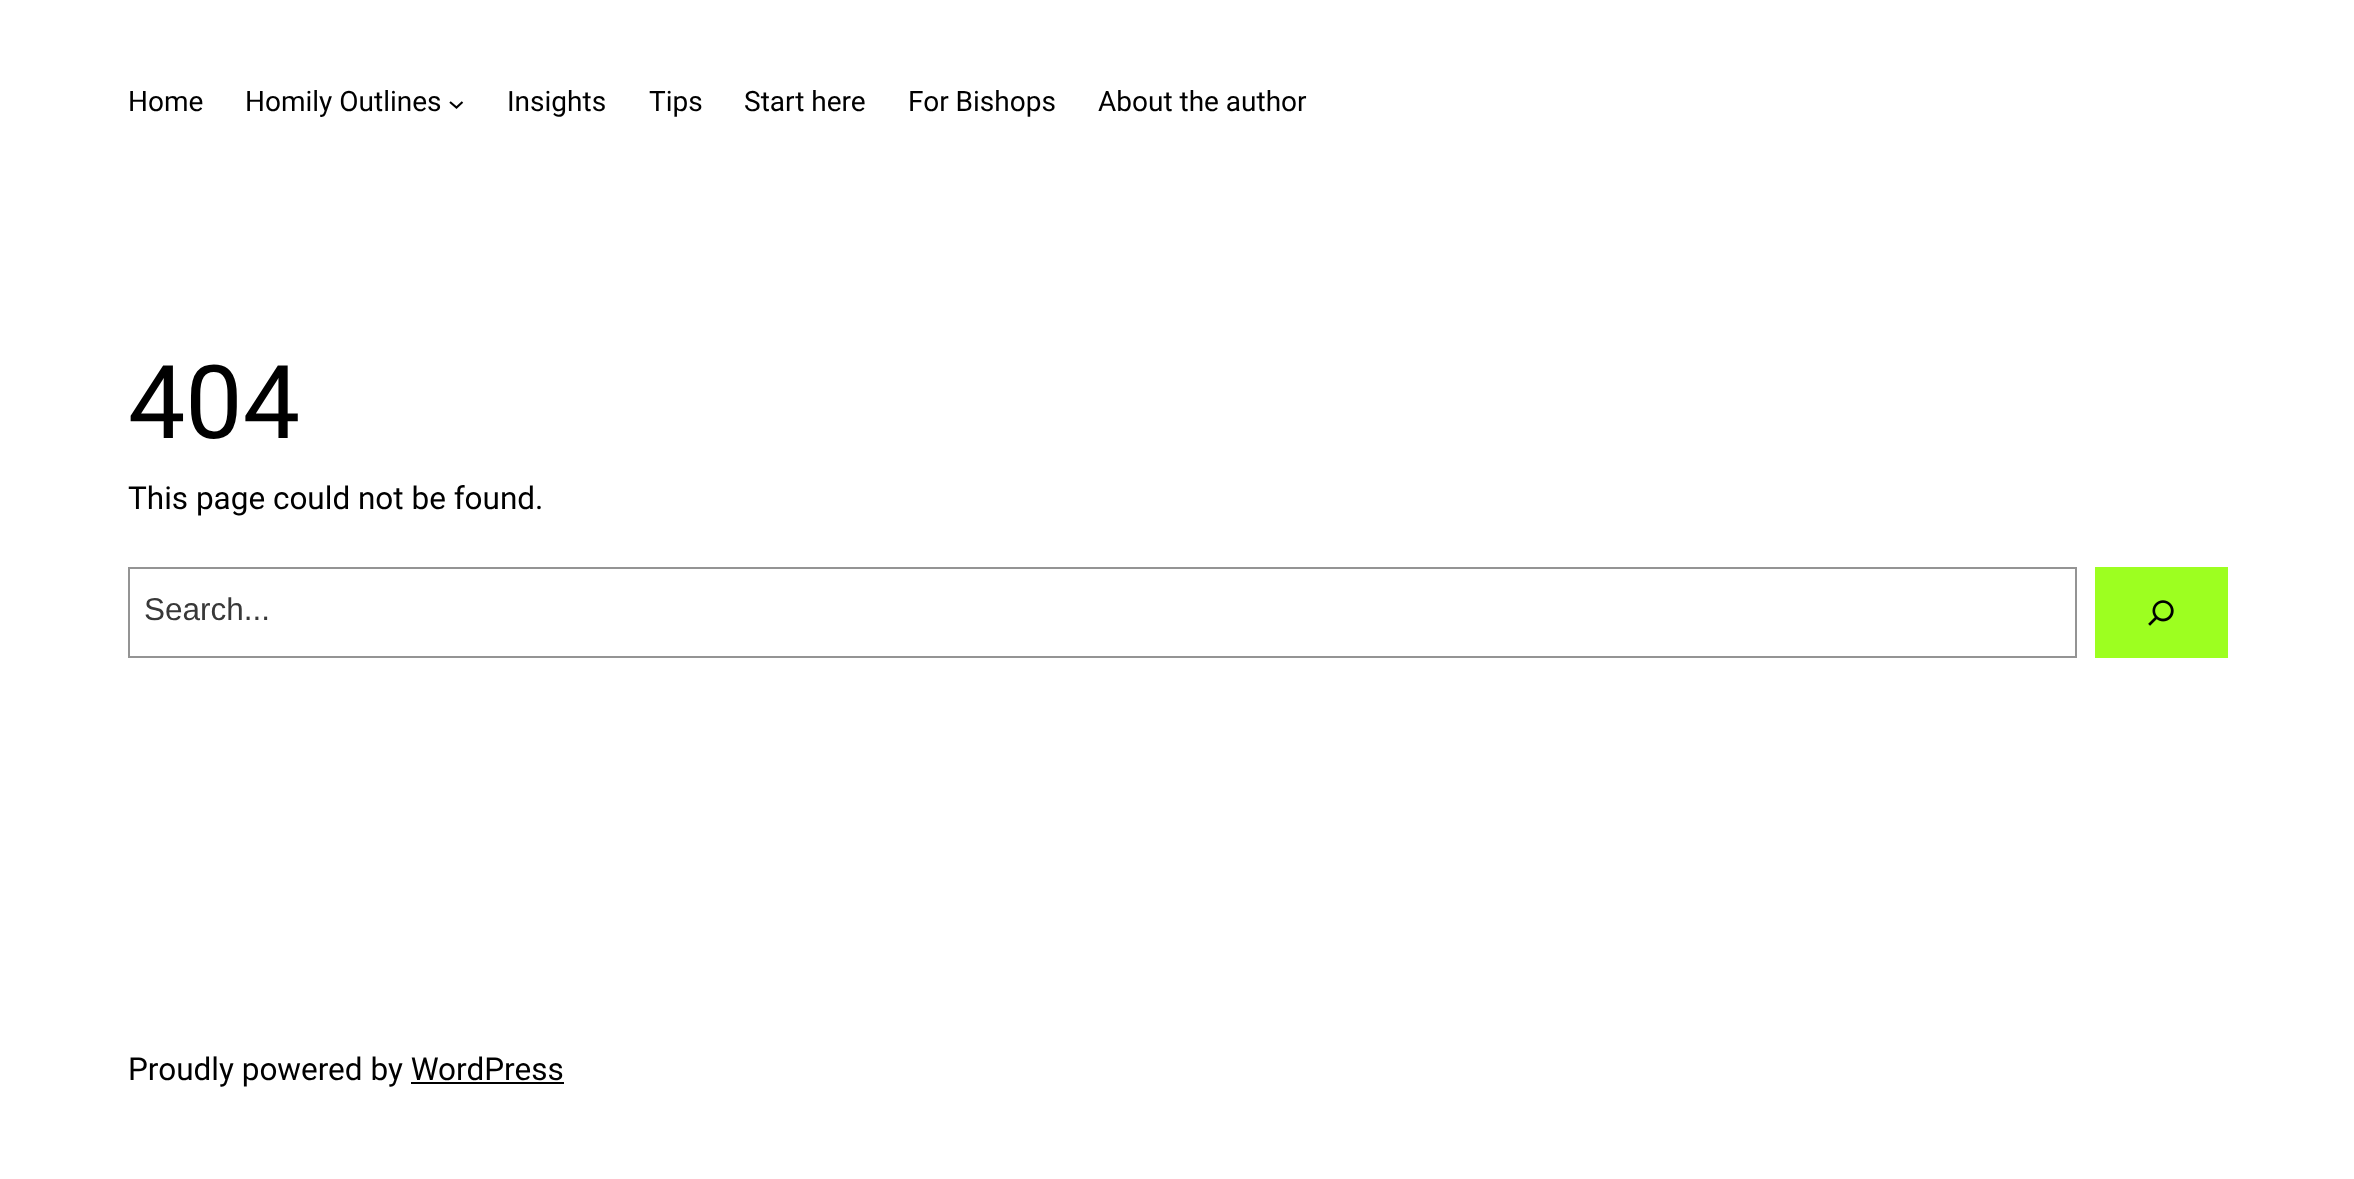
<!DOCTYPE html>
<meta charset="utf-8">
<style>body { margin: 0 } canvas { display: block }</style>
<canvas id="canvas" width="2354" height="1179"></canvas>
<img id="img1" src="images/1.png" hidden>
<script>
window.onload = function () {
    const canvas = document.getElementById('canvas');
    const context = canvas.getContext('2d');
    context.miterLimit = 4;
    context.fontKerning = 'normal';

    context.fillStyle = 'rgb(255, 255, 255)';
    context.fillRect(0, 0, 2354, 1179);
    context.beginPath();
    context.moveTo(450, 102);
    context.lineTo(456.5, 107.5);
    context.lineTo(462.5, 102);
    context.strokeStyle = 'rgb(0, 0, 0)';
    context.lineWidth = 2.1;
    context.stroke();
    context.strokeStyle = 'rgb(148, 148, 148)';
    context.lineWidth = 2;
    context.strokeRect(129, 568, 1947, 89);
    context.fillStyle = 'rgb(157, 255, 32)';
    context.fillRect(2095, 567, 133, 91);
    context.drawImage(document.getElementById('img1'), 2148, 600, 26, 26);
    context.fillStyle = 'rgb(0, 0, 0)';
    context.fillRect(411, 1082, 153, 2);
    context.font = '28px Roboto';
    context.fillText('Home', 128, 111);
    context.fillText('Homily Outlines', 245, 111);
    context.fillText('Insights', 507, 111);
    context.fillText('Tips', 649, 111);
    context.fillText('Start here', 744, 111);
    context.fillText('For Bishops', 908, 111);
    context.fillText('About the author', 1098, 111);
    context.font = '102px Roboto';
    context.fillText('404', 128, 438);
    context.font = '31.5px Roboto';
    context.fillText('This page could not be found.', 128, 509);
    context.font = '31.5px Liberation Sans';
    context.fillStyle = 'rgb(56, 56, 56)';
    context.fillText('Search...', 144, 620);
    context.font = '31.5px Roboto';
    context.fillStyle = 'rgb(0, 0, 0)';
    context.fillText('Proudly powered by WordPress', 128, 1080);
};
</script>
